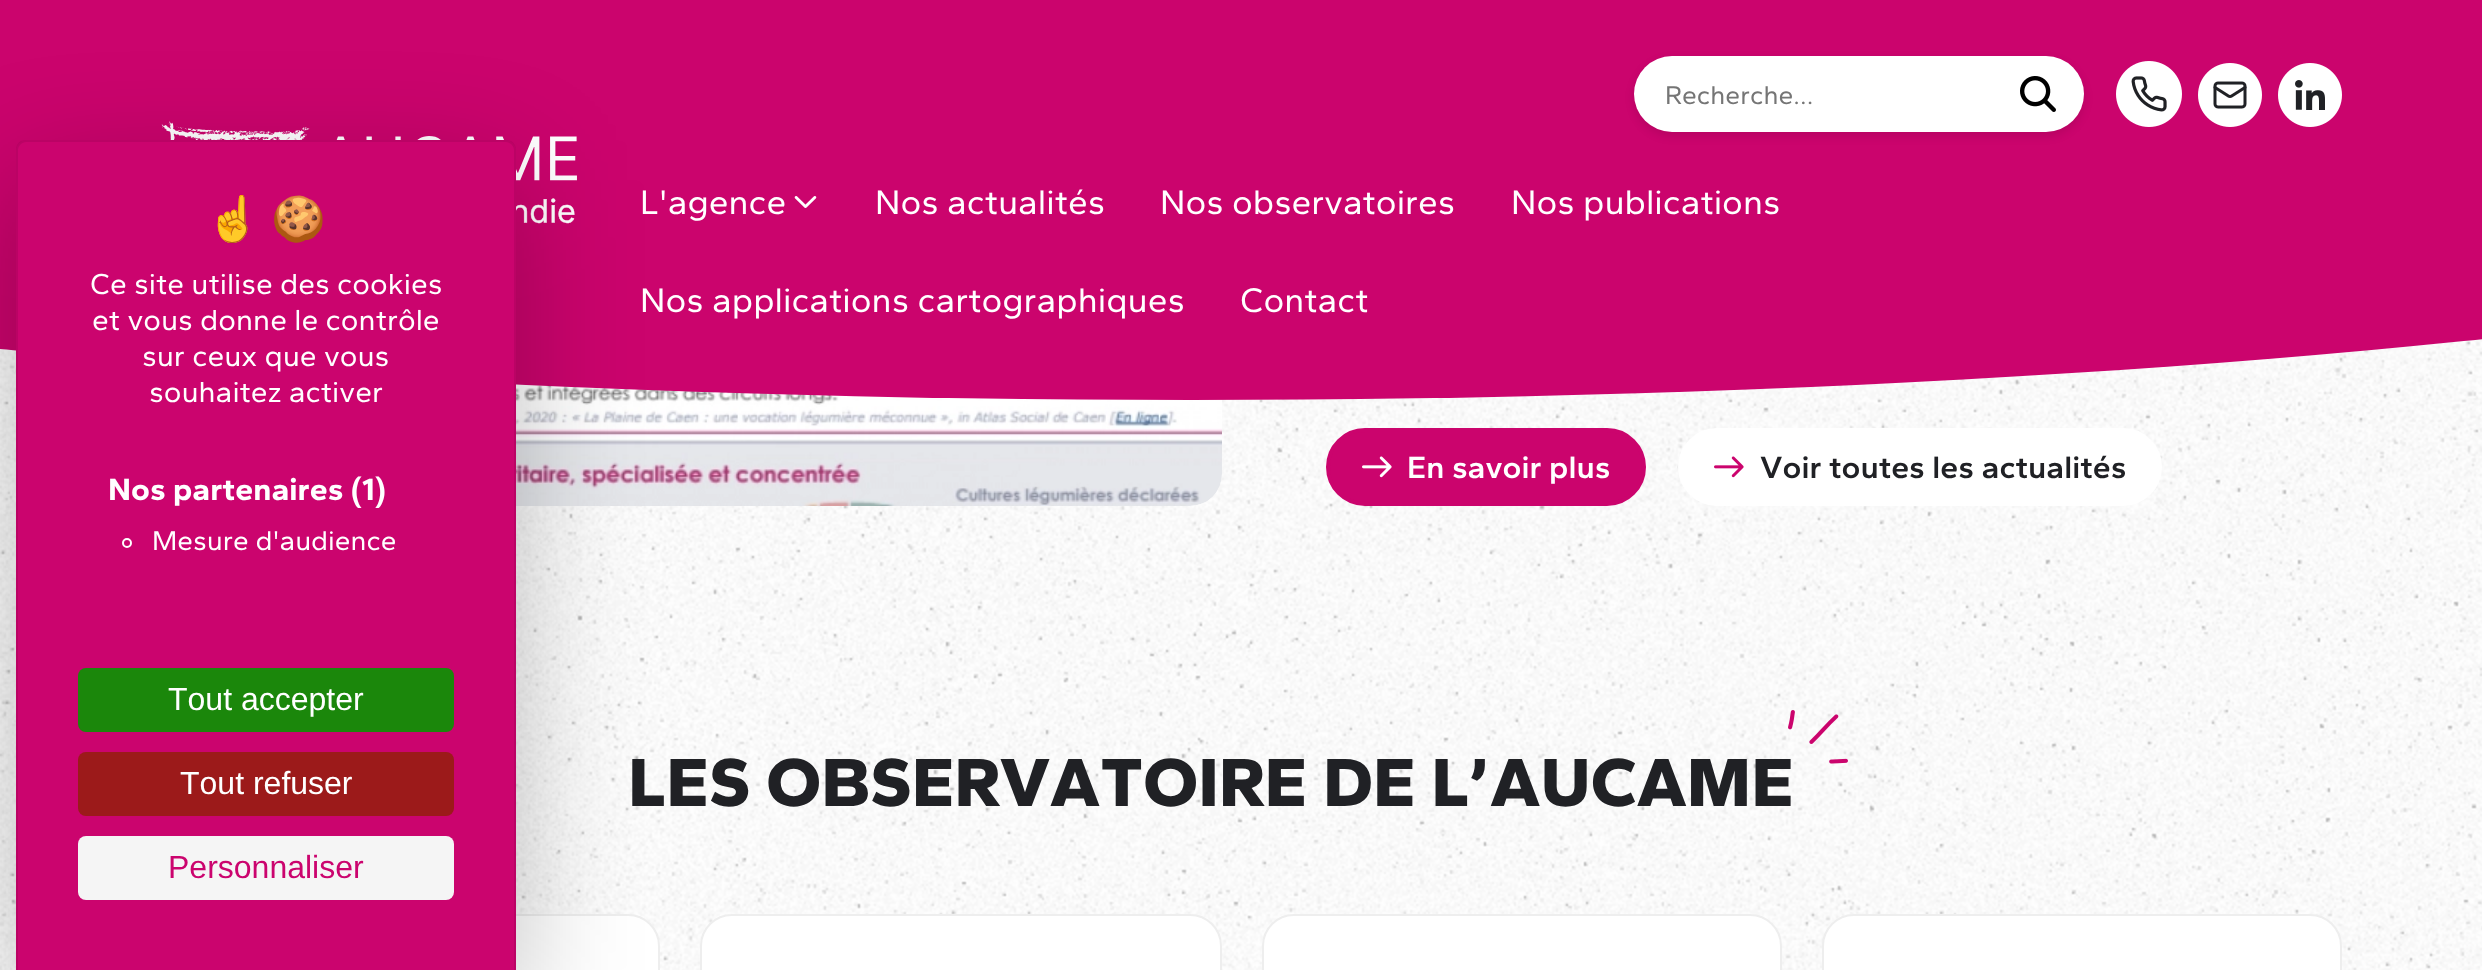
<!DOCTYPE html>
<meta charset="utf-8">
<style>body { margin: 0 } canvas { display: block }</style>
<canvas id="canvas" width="2482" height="970"></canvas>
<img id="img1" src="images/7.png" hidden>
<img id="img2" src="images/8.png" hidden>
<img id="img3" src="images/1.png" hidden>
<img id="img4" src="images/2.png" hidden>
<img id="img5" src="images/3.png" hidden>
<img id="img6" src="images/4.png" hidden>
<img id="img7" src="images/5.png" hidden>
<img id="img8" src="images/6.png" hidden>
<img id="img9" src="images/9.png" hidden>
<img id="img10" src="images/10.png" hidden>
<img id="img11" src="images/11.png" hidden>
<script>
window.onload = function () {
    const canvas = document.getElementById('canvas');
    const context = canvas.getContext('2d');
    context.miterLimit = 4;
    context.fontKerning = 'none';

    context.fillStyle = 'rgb(255, 255, 255)';
    context.fillRect(0, 0, 2482, 970);
    context.drawImage(document.getElementById('img1'), 0, 339, 2482, 631);
    context.drawImage(document.getElementById('img2'), 516, 384, 706, 122);
    context.fillStyle = 'rgb(203, 4, 109)';
    context.beginPath();
    context.ellipse(1191, 50, 2291, 350, 0, 0, 2 * Math.PI);
    context.fill();
    context.drawImage(document.getElementById('img3'), 161, 121, 416, 103);
    context.fillStyle = 'rgb(255, 255, 255)';
    context.beginPath();
    context.roundRect(141, 915, 518, 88, 31);
    context.fill();
    context.strokeStyle = 'rgb(238, 238, 238)';
    context.lineWidth = 2;
    context.stroke();
    context.fillStyle = 'rgba(0, 0, 0, 0.25)';
    context.filter = 'blur(60px)';
    context.beginPath();
    context.roundRect(16, 180, 500, 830, 10);
    context.fill();
    context.filter = 'none';
    context.fillStyle = 'rgb(203, 4, 110)';
    context.beginPath();
    context.roundRect(16, 140, 500, 830, [10, 10, 0, 0]);
    context.fill();
    context.fillStyle = 'rgba(0, 0, 0, 0.08)';
    context.beginPath();
    context.moveTo(26, 140);
    context.lineTo(506, 140);
    context.bezierCurveTo(512, 140, 516, 144, 516, 150);
    context.lineTo(516, 970);
    context.lineTo(16, 970);
    context.lineTo(16, 150);
    context.bezierCurveTo(16, 144, 20, 140, 26, 140);
    context.closePath();
    context.moveTo(26, 142);
    context.lineTo(506, 142);
    context.bezierCurveTo(510, 142, 514, 146, 514, 150);
    context.lineTo(514, 970);
    context.lineTo(18, 970);
    context.lineTo(18, 150);
    context.bezierCurveTo(18, 146, 22, 142, 26, 142);
    context.closePath();
    context.fill('evenodd');
    context.beginPath();
    context.arc(127, 543, 4, 0, 2 * Math.PI);
    context.strokeStyle = 'rgb(255, 255, 255)';
    context.stroke();
    context.fillStyle = 'rgb(27, 135, 11)';
    context.beginPath();
    context.roundRect(78, 668, 376, 64, 8);
    context.fill();
    context.fillStyle = 'rgb(156, 26, 26)';
    context.beginPath();
    context.roundRect(78, 752, 376, 64, 8);
    context.fill();
    context.fillStyle = 'rgb(245, 245, 245)';
    context.beginPath();
    context.roundRect(78, 836, 376, 64, 8);
    context.fill();
    context.fillStyle = 'rgba(0, 0, 0, 0.1)';
    context.filter = 'blur(5px)';
    context.beginPath();
    context.roundRect(1634, 60, 450, 76, 38);
    context.fill();
    context.filter = 'none';
    context.fillStyle = 'rgb(255, 255, 255)';
    context.beginPath();
    context.roundRect(1634, 56, 450, 76, 38);
    context.fill();
    context.drawImage(document.getElementById('img4'), 2020, 76, 36, 36);
    context.drawImage(document.getElementById('img5'), 2116, 61, 66, 66);
    context.drawImage(document.getElementById('img6'), 2198, 63, 64, 64);
    context.drawImage(document.getElementById('img7'), 2278, 63, 64, 64);
    context.drawImage(document.getElementById('img8'), 794, 196, 23, 12);
    context.fillStyle = 'rgb(203, 4, 109)';
    context.beginPath();
    context.roundRect(1328, 430, 316, 74, 37);
    context.fill();
    context.strokeStyle = 'rgb(203, 4, 109)';
    context.lineWidth = 4;
    context.stroke();
    context.drawImage(document.getElementById('img9'), 1362, 456, 30, 22);
    context.fillStyle = 'rgb(255, 255, 255)';
    context.beginPath();
    context.roundRect(1680, 430, 480, 74, 37);
    context.fill();
    context.strokeStyle = 'rgb(255, 255, 255)';
    context.stroke();
    context.drawImage(document.getElementById('img10'), 1714, 456, 30, 22);
    context.beginPath();
    context.roundRect(701, 915, 520, 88, 31);
    context.fill();
    context.strokeStyle = 'rgb(238, 238, 238)';
    context.lineWidth = 2;
    context.stroke();
    context.beginPath();
    context.roundRect(1263, 915, 518, 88, 31);
    context.fill();
    context.stroke();
    context.beginPath();
    context.roundRect(1823, 915, 518, 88, 31);
    context.fill();
    context.stroke();
    context.font = '44px Noto Color Emoji';
    context.fillText('☝️', 206, 234);
    context.fillText('🍪', 271, 234);
    context.font = '30px Gantari';
    context.fillText('Ce site utilise des cookies', 90, 294);
    context.fillText('et vous donne le contrôle', 92, 330);
    context.fillText('sur ceux que vous', 142, 366);
    context.fillText('souhaitez activer', 149, 402);
    context.font = 'bold 32px Gantari';
    context.fillText('Nos partenaires (1)', 108, 500);
    context.font = '28px Gantari';
    context.fillText('Mesure d\'audience', 152, 550);
    context.font = '32px Liberation Sans';
    context.fillText('Tout accepter', 168, 710);
    context.fillText('Tout refuser', 180, 794);
    context.fillStyle = 'rgb(203, 4, 110)';
    context.fillText('Personnaliser', 168, 878);
    context.font = '26.5px Gantari';
    context.fillStyle = 'rgb(117, 117, 117)';
    context.fillText('Recherche...', 1665, 104);
    context.font = '35.25px Gantari';
    context.fillStyle = 'rgb(255, 255, 255)';
    context.fillText('L\'agence', 640, 214);
    context.fillText('Nos actualités', 875, 214);
    context.fillText('Nos observatoires', 1160, 214);
    context.fillText('Nos publications', 1511, 214);
    context.fillText('Nos applications cartographiques', 640, 312);
    context.fillText('Contact', 1240, 312);
    context.font = '600 32px Gantari';
    context.fillText('En savoir plus', 1407, 478);
    context.fillStyle = 'rgb(32, 33, 37)';
    context.fillText('Voir toutes les actualités', 1760, 478);
    context.font = '800 70.4px Gantari';
    context.fillText('LES OBSERVATOIRE', 628, 806);
    context.fillText('DE L’AUCAME', 1323, 806);
    context.drawImage(document.getElementById('img11'), 1788, 710, 60, 54);
};
</script>
